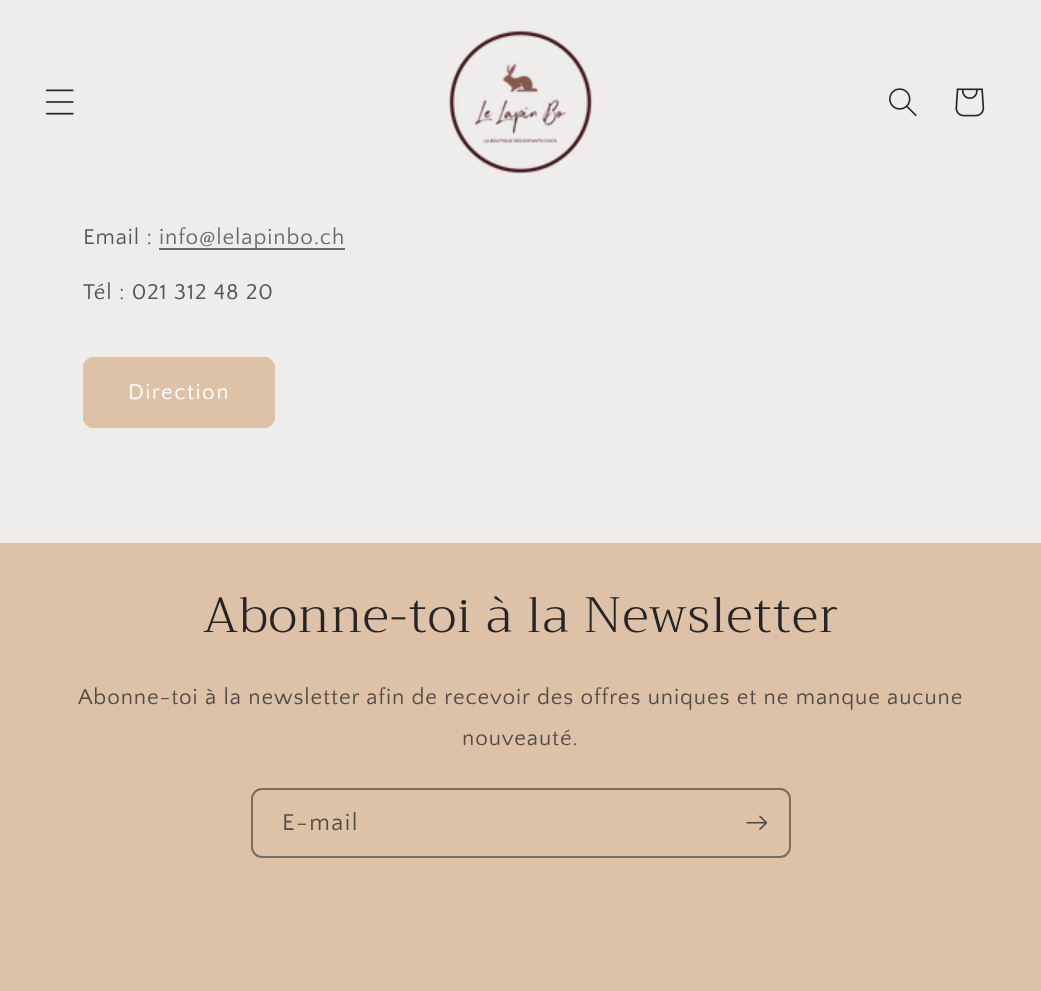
<!DOCTYPE html>
<meta charset="utf-8">
<style>body { margin: 0 } canvas { display: block }</style>
<canvas id="canvas" width="1041" height="991"></canvas>
<img id="img1" src="images/1.png" hidden>
<img id="img2" src="images/2.png" hidden>
<img id="img3" src="images/3.png" hidden>
<img id="img4" src="images/4.png" hidden>
<img id="img5" src="images/5.png" hidden>
<script>
window.onload = function () {
    const canvas = document.getElementById('canvas');
    const context = canvas.getContext('2d');
    context.miterLimit = 4;
    context.fontKerning = 'normal';

    context.fillStyle = 'rgb(239, 236, 236)';
    context.fillRect(0, 0, 1041, 991);
    context.drawImage(document.getElementById('img1'), 45, 89, 29, 26);
    context.drawImage(document.getElementById('img2'), 448, 30, 145, 144);
    context.drawImage(document.getElementById('img3'), 889, 88, 28, 28);
    context.drawImage(document.getElementById('img4'), 955, 88, 30, 29);
    context.fillStyle = 'rgb(104, 109, 108)';
    context.fillRect(159, 248, 186, 2);
    context.fillStyle = 'rgb(221, 194, 168)';
    context.beginPath();
    context.roundRect(83, 357, 192, 71, 11);
    context.fill();
    context.beginPath();
    context.roundRect(84, 358, 190, 69, 10);
    context.strokeStyle = 'rgb(221, 194, 168)';
    context.lineWidth = 2;
    context.stroke();
    context.fillRect(0, 543, 1041, 448);
    context.beginPath();
    context.roundRect(252, 789, 538, 68, 10);
    context.strokeStyle = 'rgb(120, 108, 96)';
    context.stroke();
    context.drawImage(document.getElementById('img5'), 746, 815, 22, 15);
    context.letterSpacing = '0.9px';
    context.font = '22.5px Quattrocento Sans';
    context.fillStyle = 'rgb(88, 87, 87)';
    context.fillText('Email :', 83, 244);
    context.fillStyle = 'rgb(104, 108, 108)';
    context.fillText('info@lelapinbo.ch', 159, 244);
    context.fillStyle = 'rgb(88, 87, 87)';
    context.fillText('Tél : 021 312 48 20', 83, 299);
    context.letterSpacing = '1.5px';
    context.fillStyle = 'rgb(255, 255, 255)';
    context.fillText('Direction', 128, 399);
    context.letterSpacing = '1px';
    context.font = '300 49.5px Trirong';
    context.fillStyle = 'rgb(37, 37, 37)';
    context.fillText('Abonne-toi à la Newsletter', 203, 632);
    context.letterSpacing = '0.9px';
    context.font = '22.5px Quattrocento Sans';
    context.fillStyle = 'rgb(83, 76, 70)';
    context.fillText('Abonne-toi à la newsletter afin de recevoir des offres uniques et ne manque aucune', 78, 704);
    context.fillText('nouveauté.', 462, 745);
    context.letterSpacing = '1.5px';
    context.font = '24px Quattrocento Sans';
    context.fillText('E-mail', 282, 830);
};
</script>
